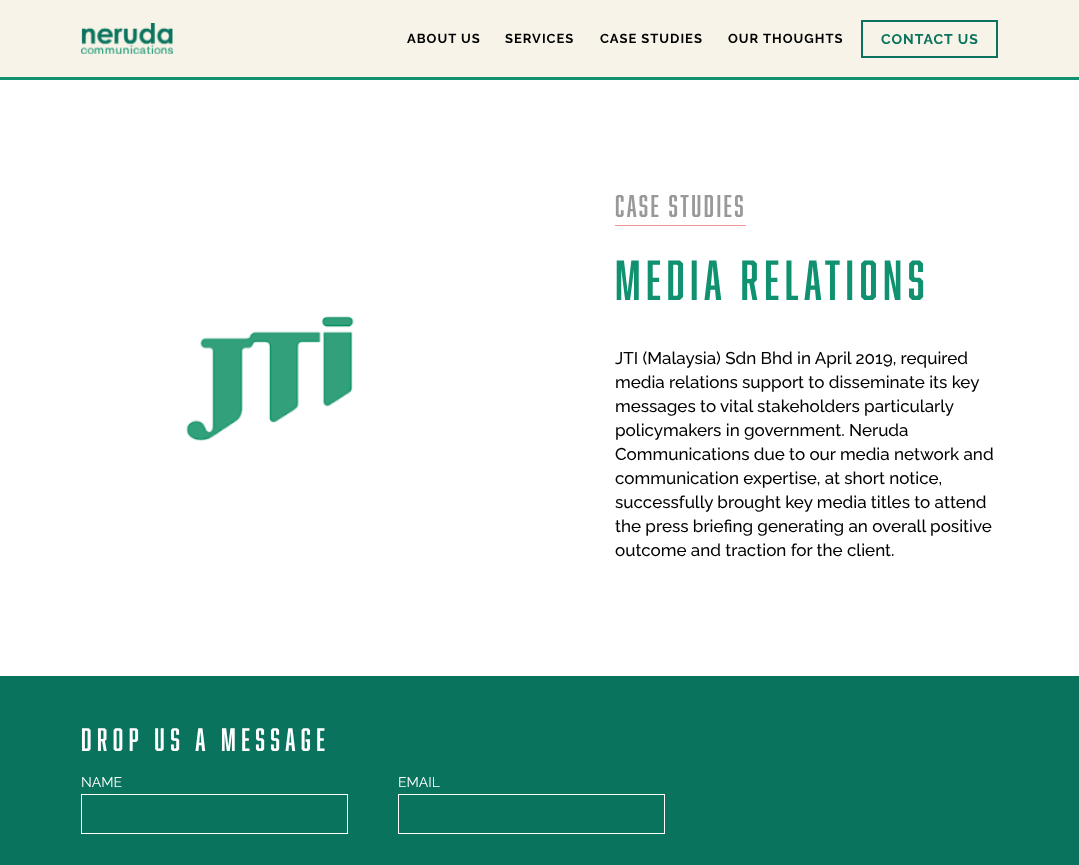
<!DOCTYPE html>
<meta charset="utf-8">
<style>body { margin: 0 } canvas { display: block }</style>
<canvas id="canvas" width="1079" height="865"></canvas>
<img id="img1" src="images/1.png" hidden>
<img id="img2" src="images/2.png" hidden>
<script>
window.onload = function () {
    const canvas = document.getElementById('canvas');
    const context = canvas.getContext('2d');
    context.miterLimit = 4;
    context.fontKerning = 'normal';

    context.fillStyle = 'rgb(255, 255, 255)';
    context.fillRect(0, 0, 1079, 865);
    context.fillStyle = 'rgb(247, 243, 232)';
    context.fillRect(0, 0, 1079, 77);
    context.fillStyle = 'rgb(16, 146, 112)';
    context.fillRect(0, 77, 1079, 3);
    context.drawImage(document.getElementById('img1'), 81, 23, 92, 31);
    context.save();
    context.beginPath();
    context.moveTo(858, 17);
    context.lineTo(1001, 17);
    context.lineTo(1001, 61);
    context.lineTo(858, 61);
    context.closePath();
    context.moveTo(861, 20);
    context.lineTo(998, 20);
    context.lineTo(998, 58);
    context.lineTo(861, 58);
    context.closePath();
    context.clip('evenodd');
    context.fillStyle = 'rgba(0, 0, 0, 0.5)';
    context.filter = 'blur(0.5px)';
    context.beginPath();
    context.rect(861, 20, 137, 38);
    context.fill();
    context.filter = 'none';
    context.restore();
    context.strokeStyle = 'rgb(9, 115, 93)';
    context.lineWidth = 2;
    context.strokeRect(862, 21, 135, 36);
    context.drawImage(document.getElementById('img2'), 186, 316, 168, 126);
    context.fillStyle = 'rgb(239, 153, 148)';
    context.fillRect(615, 225, 131, 1);
    context.fillStyle = 'rgb(9, 115, 93)';
    context.fillRect(0, 676, 1079, 189);
    context.strokeStyle = 'rgb(255, 255, 255)';
    context.lineWidth = 1;
    context.strokeRect(81.5, 794.5, 266, 39);
    context.strokeRect(398.5, 794.5, 266, 39);
    context.letterSpacing = '1px';
    context.font = 'bold 13px Raleway';
    context.fillStyle = 'rgb(0, 0, 0)';
    context.fillText('ABOUT US', 407, 43);
    context.fillText('SERVICES', 505, 43);
    context.fillText('CASE STUDIES', 600, 43);
    context.fillText('OUR THOUGHTS', 728, 43);
    context.font = 'bold 14px Raleway';
    context.fillStyle = 'rgb(9, 115, 93)';
    context.fillText('CONTACT US', 881, 44);
    context.letterSpacing = '2.5px';
    context.font = '29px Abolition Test';
    context.fillStyle = 'rgb(153, 153, 153)';
    context.fillText('CASE STUDIES', 615, 217);
    context.letterSpacing = '5.5px';
    context.font = '52px Abolition Test';
    context.fillStyle = 'rgb(16, 146, 112)';
    context.fillText('MEDIA RELATIONS', 615, 300);
    context.letterSpacing = '0px';
    context.font = '500 17px Raleway';
    context.fillStyle = 'rgb(0, 0, 0)';
    context.fillText('JTI (Malaysia) Sdn Bhd in April 2019, required', 615, 364);
    context.fillText('media relations support to disseminate its key', 615, 388);
    context.fillText('messages to vital stakeholders particularly', 615, 412);
    context.fillText('policymakers in government. Neruda', 615, 436);
    context.fillText('Communications due to our media network and', 615, 460);
    context.fillText('communication expertise, at short notice,', 615, 484);
    context.fillText('successfully brought key media titles to attend', 615, 508);
    context.fillText('the press briefing generating an overall positive', 615, 532);
    context.fillText('outcome and traction for the client.', 615, 556);
    context.letterSpacing = '5.5px';
    context.font = '30px Abolition Test';
    context.fillStyle = 'rgb(255, 255, 255)';
    context.fillText('Drop us a message', 81, 751);
    context.letterSpacing = '0px';
    context.font = '14px Raleway';
    context.fillText('NAME', 81, 787);
    context.fillText('EMAIL', 398, 787);
};
</script>
